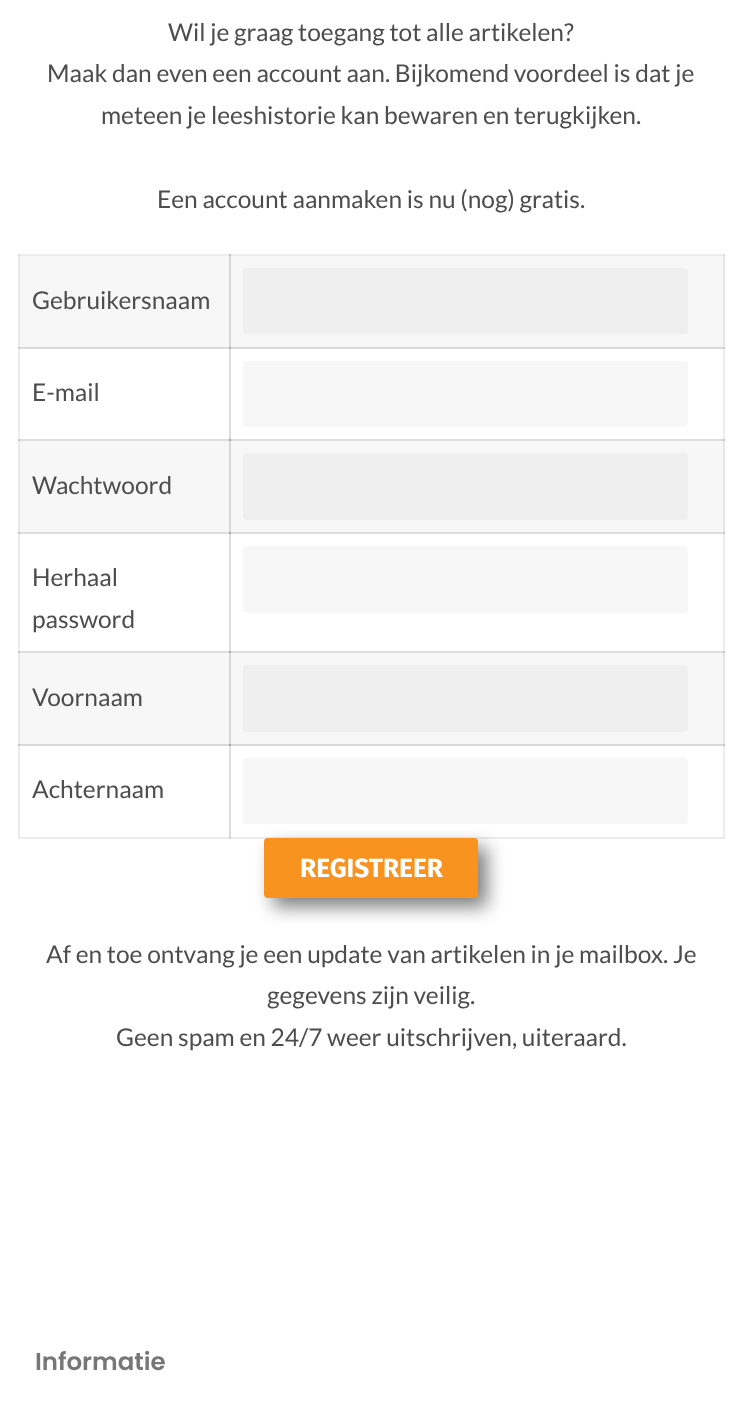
<!DOCTYPE html>
<meta charset="utf-8">
<style>body { margin: 0 } canvas { display: block }</style>
<canvas id="canvas" width="742" height="1428"></canvas>
<script>
window.onload = function () {
    const canvas = document.getElementById('canvas');
    const context = canvas.getContext('2d');
    context.miterLimit = 4;
    context.fontKerning = 'normal';

    context.fillStyle = 'rgb(255, 255, 255)';
    context.fillRect(0, 0, 742, 1428);
    context.fillStyle = 'rgb(237, 237, 237)';
    context.fillRect(18, 254, 1, 94);
    context.fillRect(18, 254, 707, 2);
    context.fillStyle = 'rgb(222, 222, 222)';
    context.fillRect(18, 254, 2, 2);
    context.fillStyle = 'rgb(237, 237, 237)';
    context.fillRect(18, 347, 2, 94);
    context.fillStyle = 'rgb(222, 222, 222)';
    context.fillRect(18, 348, 213, 1);
    context.fillStyle = 'rgb(209, 209, 209)';
    context.fillRect(18, 348, 2, 1);
    context.fillStyle = 'rgb(198, 198, 198)';
    context.fillRect(18, 347, 2, 1);
    context.fillStyle = 'rgb(222, 222, 222)';
    context.fillRect(229, 347, 2, 94);
    context.fillStyle = 'rgb(237, 237, 237)';
    context.fillRect(723, 347, 2, 94);
    context.fillStyle = 'rgb(222, 222, 222)';
    context.fillRect(229, 348, 496, 1);
    context.fillStyle = 'rgb(181, 181, 181)';
    context.fillRect(229, 348, 2, 1);
    context.fillStyle = 'rgb(209, 209, 209)';
    context.fillRect(723, 348, 2, 1);
    context.fillStyle = 'rgb(237, 237, 237)';
    context.fillRect(18, 439, 1, 95);
    context.fillStyle = 'rgb(222, 222, 222)';
    context.fillRect(18, 439, 707, 2);
    context.fillStyle = 'rgb(198, 198, 198)';
    context.fillRect(18, 439, 2, 2);
    context.fillStyle = 'rgb(237, 237, 237)';
    context.fillRect(18, 532, 2, 121);
    context.fillStyle = 'rgb(222, 222, 222)';
    context.fillRect(18, 532, 213, 2);
    context.fillStyle = 'rgb(198, 198, 198)';
    context.fillRect(18, 532, 2, 2);
    context.fillStyle = 'rgb(222, 222, 222)';
    context.fillRect(229, 532, 2, 121);
    context.fillStyle = 'rgb(237, 237, 237)';
    context.fillRect(723, 532, 2, 121);
    context.fillRect(18, 651, 1, 95);
    context.fillStyle = 'rgb(222, 222, 222)';
    context.fillRect(18, 651, 707, 2);
    context.fillStyle = 'rgb(198, 198, 198)';
    context.fillRect(18, 651, 2, 2);
    context.fillStyle = 'rgb(237, 237, 237)';
    context.fillRect(18, 744, 2, 94);
    context.fillRect(18, 837, 213, 2);
    context.fillStyle = 'rgb(222, 222, 222)';
    context.fillRect(18, 837, 2, 1);
    context.fillStyle = 'rgb(198, 198, 198)';
    context.fillRect(18, 744, 2, 2);
    context.fillStyle = 'rgb(222, 222, 222)';
    context.fillRect(229, 744, 2, 94);
    context.fillStyle = 'rgb(237, 237, 237)';
    context.fillRect(229, 837, 496, 2);
    context.fillStyle = 'rgb(222, 222, 222)';
    context.fillRect(229, 838, 2, 1);
    context.fillStyle = 'rgb(198, 198, 198)';
    context.fillRect(229, 837, 2, 1);
    context.fillStyle = 'rgb(237, 237, 237)';
    context.fillRect(723, 744, 2, 94);
    context.fillStyle = 'rgb(222, 222, 222)';
    context.fillRect(723, 837, 2, 1);
    context.fillStyle = 'rgb(247, 247, 247)';
    context.fillRect(20, 256, 703, 91);
    context.fillStyle = 'rgb(230, 230, 230)';
    context.fillRect(19, 256, 1, 92);
    context.fillStyle = 'rgb(216, 216, 216)';
    context.fillRect(229, 256, 2, 92);
    context.fillStyle = 'rgb(230, 230, 230)';
    context.fillRect(723, 256, 2, 92);
    context.fillStyle = 'rgb(216, 216, 216)';
    context.fillRect(19, 347, 706, 1);
    context.fillStyle = 'rgb(194, 194, 194)';
    context.fillRect(19, 347, 1, 1);
    context.fillStyle = 'rgb(167, 167, 167)';
    context.fillRect(229, 347, 2, 1);
    context.fillStyle = 'rgb(194, 194, 194)';
    context.fillRect(723, 347, 2, 1);
    context.fillStyle = 'rgb(198, 198, 198)';
    context.fillRect(229, 254, 2, 2);
    context.fillStyle = 'rgb(222, 222, 222)';
    context.fillRect(723, 254, 2, 2);
    context.fillStyle = 'rgb(239, 239, 239)';
    context.beginPath();
    context.roundRect(243, 268, 445, 66, 4);
    context.fill();
    context.fillStyle = 'rgb(247, 247, 247)';
    context.beginPath();
    context.roundRect(243, 361, 445, 66, 4);
    context.fill();
    context.fillRect(20, 441, 703, 91);
    context.fillStyle = 'rgb(230, 230, 230)';
    context.fillRect(19, 441, 1, 91);
    context.fillStyle = 'rgb(216, 216, 216)';
    context.fillRect(229, 441, 2, 91);
    context.fillStyle = 'rgb(230, 230, 230)';
    context.fillRect(723, 441, 2, 91);
    context.fillStyle = 'rgb(168, 168, 168)';
    context.fillRect(229, 439, 2, 2);
    context.fillStyle = 'rgb(198, 198, 198)';
    context.fillRect(723, 439, 2, 2);
    context.fillStyle = 'rgb(239, 239, 239)';
    context.beginPath();
    context.roundRect(243, 453, 445, 67, 4);
    context.fill();
    context.fillStyle = 'rgb(222, 222, 222)';
    context.fillRect(229, 532, 496, 2);
    context.fillStyle = 'rgb(168, 168, 168)';
    context.fillRect(229, 532, 2, 2);
    context.fillStyle = 'rgb(198, 198, 198)';
    context.fillRect(723, 532, 2, 2);
    context.fillStyle = 'rgb(247, 247, 247)';
    context.beginPath();
    context.roundRect(243, 546, 445, 67, 4);
    context.fill();
    context.fillRect(20, 653, 703, 91);
    context.fillStyle = 'rgb(230, 230, 230)';
    context.fillRect(19, 653, 1, 93);
    context.fillStyle = 'rgb(216, 216, 216)';
    context.fillRect(229, 653, 2, 93);
    context.fillStyle = 'rgb(230, 230, 230)';
    context.fillRect(723, 653, 2, 93);
    context.fillStyle = 'rgb(216, 216, 216)';
    context.fillRect(19, 744, 706, 2);
    context.fillStyle = 'rgb(194, 194, 194)';
    context.fillRect(19, 744, 1, 2);
    context.fillStyle = 'rgb(168, 168, 168)';
    context.fillRect(229, 651, 2, 2);
    context.fillStyle = 'rgb(198, 198, 198)';
    context.fillRect(723, 651, 2, 2);
    context.fillStyle = 'rgb(239, 239, 239)';
    context.beginPath();
    context.roundRect(243, 665, 445, 67, 4);
    context.fill();
    context.fillStyle = 'rgb(167, 167, 167)';
    context.fillRect(229, 744, 2, 2);
    context.fillStyle = 'rgb(194, 194, 194)';
    context.fillRect(723, 744, 2, 2);
    context.fillStyle = 'rgba(0, 0, 0, 0.5)';
    context.filter = 'blur(9px)';
    context.beginPath();
    context.roundRect(273, 847, 214, 60, 4);
    context.fill();
    context.filter = 'none';
    context.fillStyle = 'rgb(247, 247, 247)';
    context.beginPath();
    context.roundRect(243, 758, 445, 66, 4);
    context.fill();
    context.fillStyle = 'rgb(247, 147, 30)';
    context.beginPath();
    context.roundRect(264, 838, 214, 60, 4);
    context.fill();
    context.font = '24.5px Lato';
    context.fillStyle = 'rgb(77, 77, 77)';
    context.fillText('Wil je graag toegang tot alle artikelen?', 168, 41);
    context.fillText('Maak dan even een account aan. Bijkomend voordeel is dat je', 47, 82);
    context.fillText('meteen je leeshistorie kan bewaren en terugkijken.', 101, 124);
    context.fillText('Een account aanmaken is nu (nog) gratis.', 157, 208);
    context.fillText('Gebruikersnaam', 32, 309);
    context.fillText('E-mail', 32, 401);
    context.fillText('Wachtwoord', 32, 494);
    context.fillText('Herhaal', 32, 586);
    context.fillText('password', 32, 628);
    context.fillText('Voornaam', 32, 706);
    context.fillText('Achternaam', 32, 798);
    context.font = 'bold 26.25px Fira Sans';
    context.fillStyle = 'rgb(255, 255, 255)';
    context.fillText('REGISTREER', 300, 877);
    context.font = '24.5px Lato';
    context.fillStyle = 'rgb(77, 77, 77)';
    context.fillText('Af en toe ontvang je een update van artikelen in je mailbox. Je', 46, 963);
    context.fillText('gegevens zijn veilig.', 267, 1004);
    context.fillText('Geen spam en 24/7 weer uitschrijven, uiteraard.', 116, 1046);
    context.font = '600 24.5px Poppins';
    context.fillStyle = 'rgb(119, 119, 119)';
    context.fillText('Informatie', 35, 1370);
};
</script>
